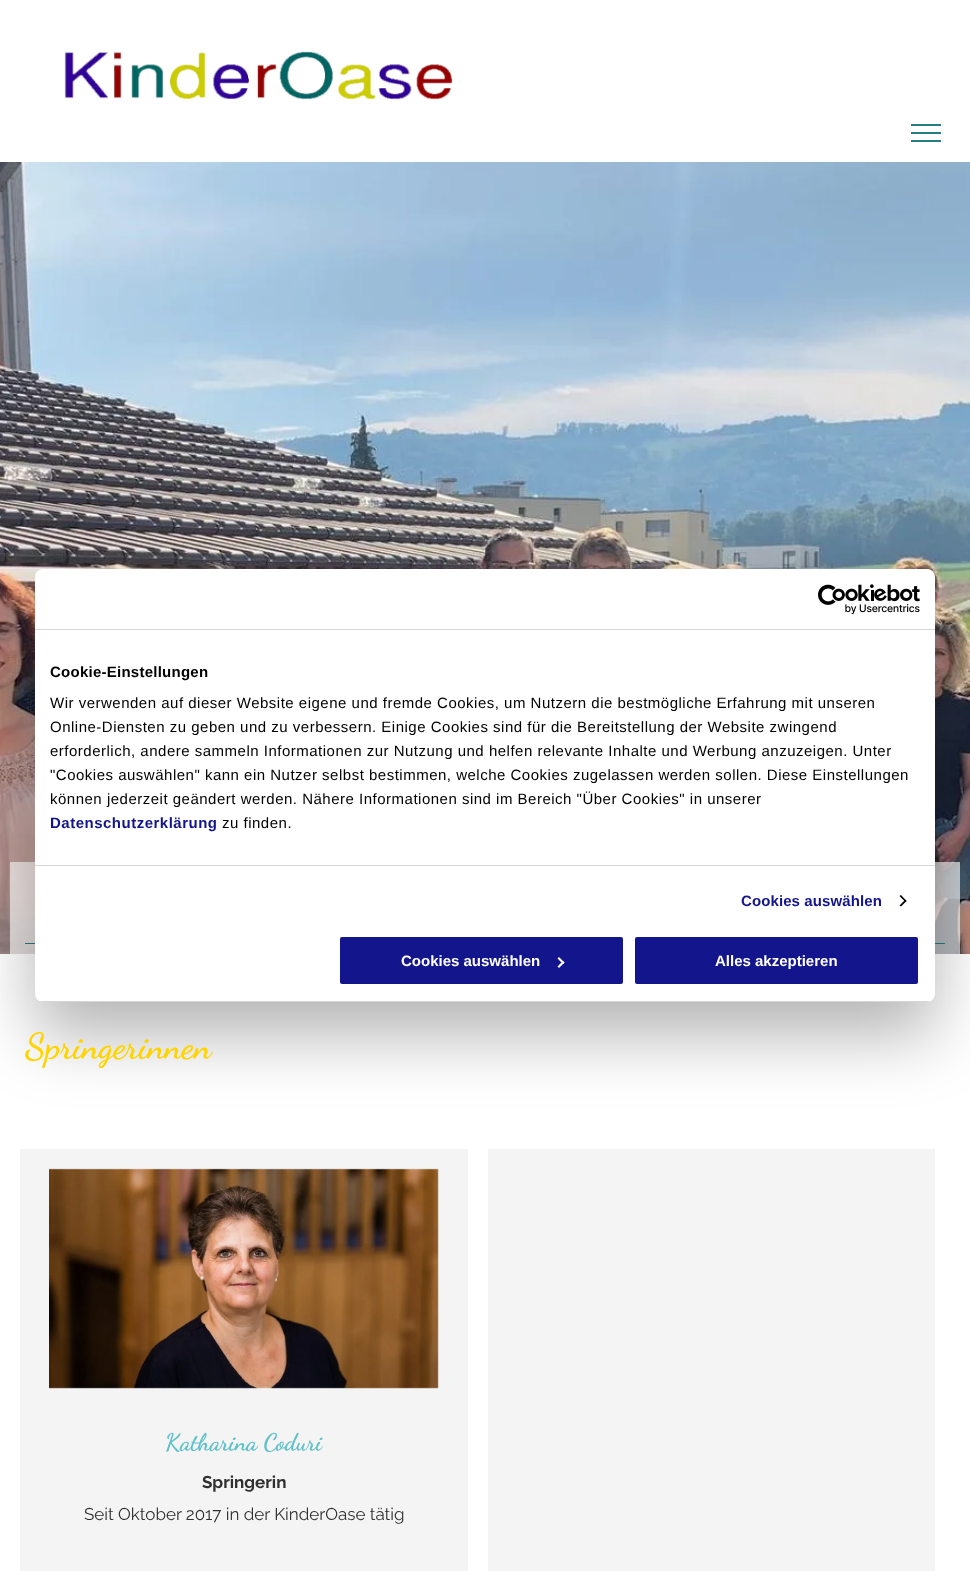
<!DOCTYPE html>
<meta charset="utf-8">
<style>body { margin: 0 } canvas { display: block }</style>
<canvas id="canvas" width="970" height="1571"></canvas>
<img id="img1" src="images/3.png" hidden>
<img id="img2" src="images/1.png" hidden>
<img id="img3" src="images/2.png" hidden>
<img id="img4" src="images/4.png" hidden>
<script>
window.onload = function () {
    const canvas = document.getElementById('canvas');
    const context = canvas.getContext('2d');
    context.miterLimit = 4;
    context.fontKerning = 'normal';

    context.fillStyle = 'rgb(255, 255, 255)';
    context.fillRect(0, 0, 970, 1571);
    context.drawImage(document.getElementById('img1'), 0, 162, 970, 792);
    context.fillStyle = 'rgba(255, 255, 255, 0.69)';
    context.fillRect(10, 862, 950, 92);
    context.fillStyle = 'rgb(38, 125, 132)';
    context.fillRect(25, 943, 920, 1);
    context.fillStyle = 'rgba(0, 0, 0, 0.3)';
    context.filter = 'blur(34px)';
    context.beginPath();
    context.roundRect(35, 601, 900, 433, 8);
    context.fill();
    context.filter = 'none';
    context.fillStyle = 'rgb(255, 255, 255)';
    context.beginPath();
    context.roundRect(35, 569, 900, 433, 8);
    context.fill();
    context.fillStyle = 'rgb(214, 214, 214)';
    context.fillRect(35, 629, 900, 1);
    context.drawImage(document.getElementById('img2'), 818, 584, 102, 30);
    context.fillRect(35, 865, 900, 1);
    context.fillStyle = 'rgb(0, 0, 0)';
    context.beginPath();
    context.moveTo(901, 895);
    context.lineTo(906.5, 901);
    context.lineTo(905.5, 902);
    context.lineTo(899.5, 896);
    context.closePath();
    context.fill();
    context.beginPath();
    context.moveTo(905.5, 899.5);
    context.lineTo(906.5, 901);
    context.lineTo(901, 906.5);
    context.lineTo(899.5, 905.5);
    context.closePath();
    context.fill();
    context.save();
    context.beginPath();
    context.roundRect(35, 569, 900, 433, 8);
    context.clip();
    context.fillStyle = 'rgb(214, 214, 214)';
    context.fillRect(35, 1001, 900, 1);
    context.restore();
    context.fillStyle = 'rgb(18, 21, 140)';
    context.beginPath();
    context.roundRect(339, 936, 285, 49, 3);
    context.fill();
    context.strokeStyle = 'rgb(255, 255, 255)';
    context.lineWidth = 2;
    context.stroke();
    context.fillStyle = 'rgb(255, 255, 255)';
    context.beginPath();
    context.moveTo(559, 957);
    context.lineTo(564.5, 962.5);
    context.lineTo(563, 964);
    context.lineTo(557.5, 958.5);
    context.closePath();
    context.fill();
    context.beginPath();
    context.moveTo(563, 961);
    context.lineTo(564.5, 962.5);
    context.lineTo(559, 968);
    context.lineTo(557.5, 966.5);
    context.closePath();
    context.fill();
    context.fillStyle = 'rgb(18, 21, 140)';
    context.beginPath();
    context.roundRect(634, 936, 285, 49, 3);
    context.fill();
    context.stroke();
    context.drawImage(document.getElementById('img3'), 64, 51, 389, 79);
    context.fillStyle = 'rgb(38, 125, 132)';
    context.fillRect(911, 124, 30, 2);
    context.fillRect(911, 132, 30, 2);
    context.fillRect(911, 140, 30, 2);
    context.fillStyle = 'rgb(244, 244, 244)';
    context.fillRect(20, 1149, 448, 422);
    context.drawImage(document.getElementById('img4'), 49, 1168, 390, 221);
    context.fillRect(488, 1149, 447, 422);
    context.letterSpacing = '0.25px';
    context.font = 'bold 15px Liberation Sans';
    context.fillStyle = 'rgb(0, 0, 0)';
    context.fillText('Cookie-Einstellungen', 50, 677);
    context.letterSpacing = '0.5px';
    context.font = '15px Liberation Sans';
    context.fillText('Wir verwenden auf dieser Website eigene und fremde Cookies, um Nutzern die bestmögliche Erfahrung mit unseren', 50, 708);
    context.fillText('Online-Diensten zu geben und zu verbessern. Einige Cookies sind für die Bereitstellung der Website zwingend', 50, 732);
    context.fillText('erforderlich, andere sammeln Informationen zur Nutzung und helfen relevante Inhalte und Werbung anzuzeigen. Unter', 50, 756);
    context.fillText('"Cookies auswählen" kann ein Nutzer selbst bestimmen, welche Cookies zugelassen werden sollen. Diese Einstellungen', 50, 780);
    context.fillText('können jederzeit geändert werden. Nähere Informationen sind im Bereich "Über Cookies" in unserer', 50, 804);
    context.font = 'bold 15px Liberation Sans';
    context.fillStyle = 'rgb(18, 21, 140)';
    context.fillText('Datenschutzerklärung', 50, 828);
    context.font = '15px Liberation Sans';
    context.fillStyle = 'rgb(0, 0, 0)';
    context.fillText('zu finden.', 222, 828);
    context.letterSpacing = '0.1px';
    context.font = 'bold 15px Liberation Sans';
    context.fillStyle = 'rgb(18, 21, 140)';
    context.fillText('Cookies auswählen', 741, 906);
    context.letterSpacing = '0px';
    context.fillStyle = 'rgb(255, 255, 255)';
    context.fillText('Cookies auswählen', 401, 966);
    context.fillText('Alles akzeptieren', 715, 966);
    context.font = 'bold 36px Dancing Script';
    context.fillStyle = 'rgb(255, 212, 0)';
    context.fillText('Springerinnen', 25, 1058);
    context.font = 'bold 24px Dancing Script';
    context.fillStyle = 'rgb(94, 192, 200)';
    context.fillText('Katharina Coduri', 165, 1450);
    context.font = 'bold 17px Raleway';
    context.fillStyle = 'rgb(48, 48, 48)';
    context.fillText('Springerin', 202, 1488);
    context.font = '17px Raleway';
    context.fillText('Seit Oktober 2017 in der KinderOase tätig', 84, 1520);
};
</script>
